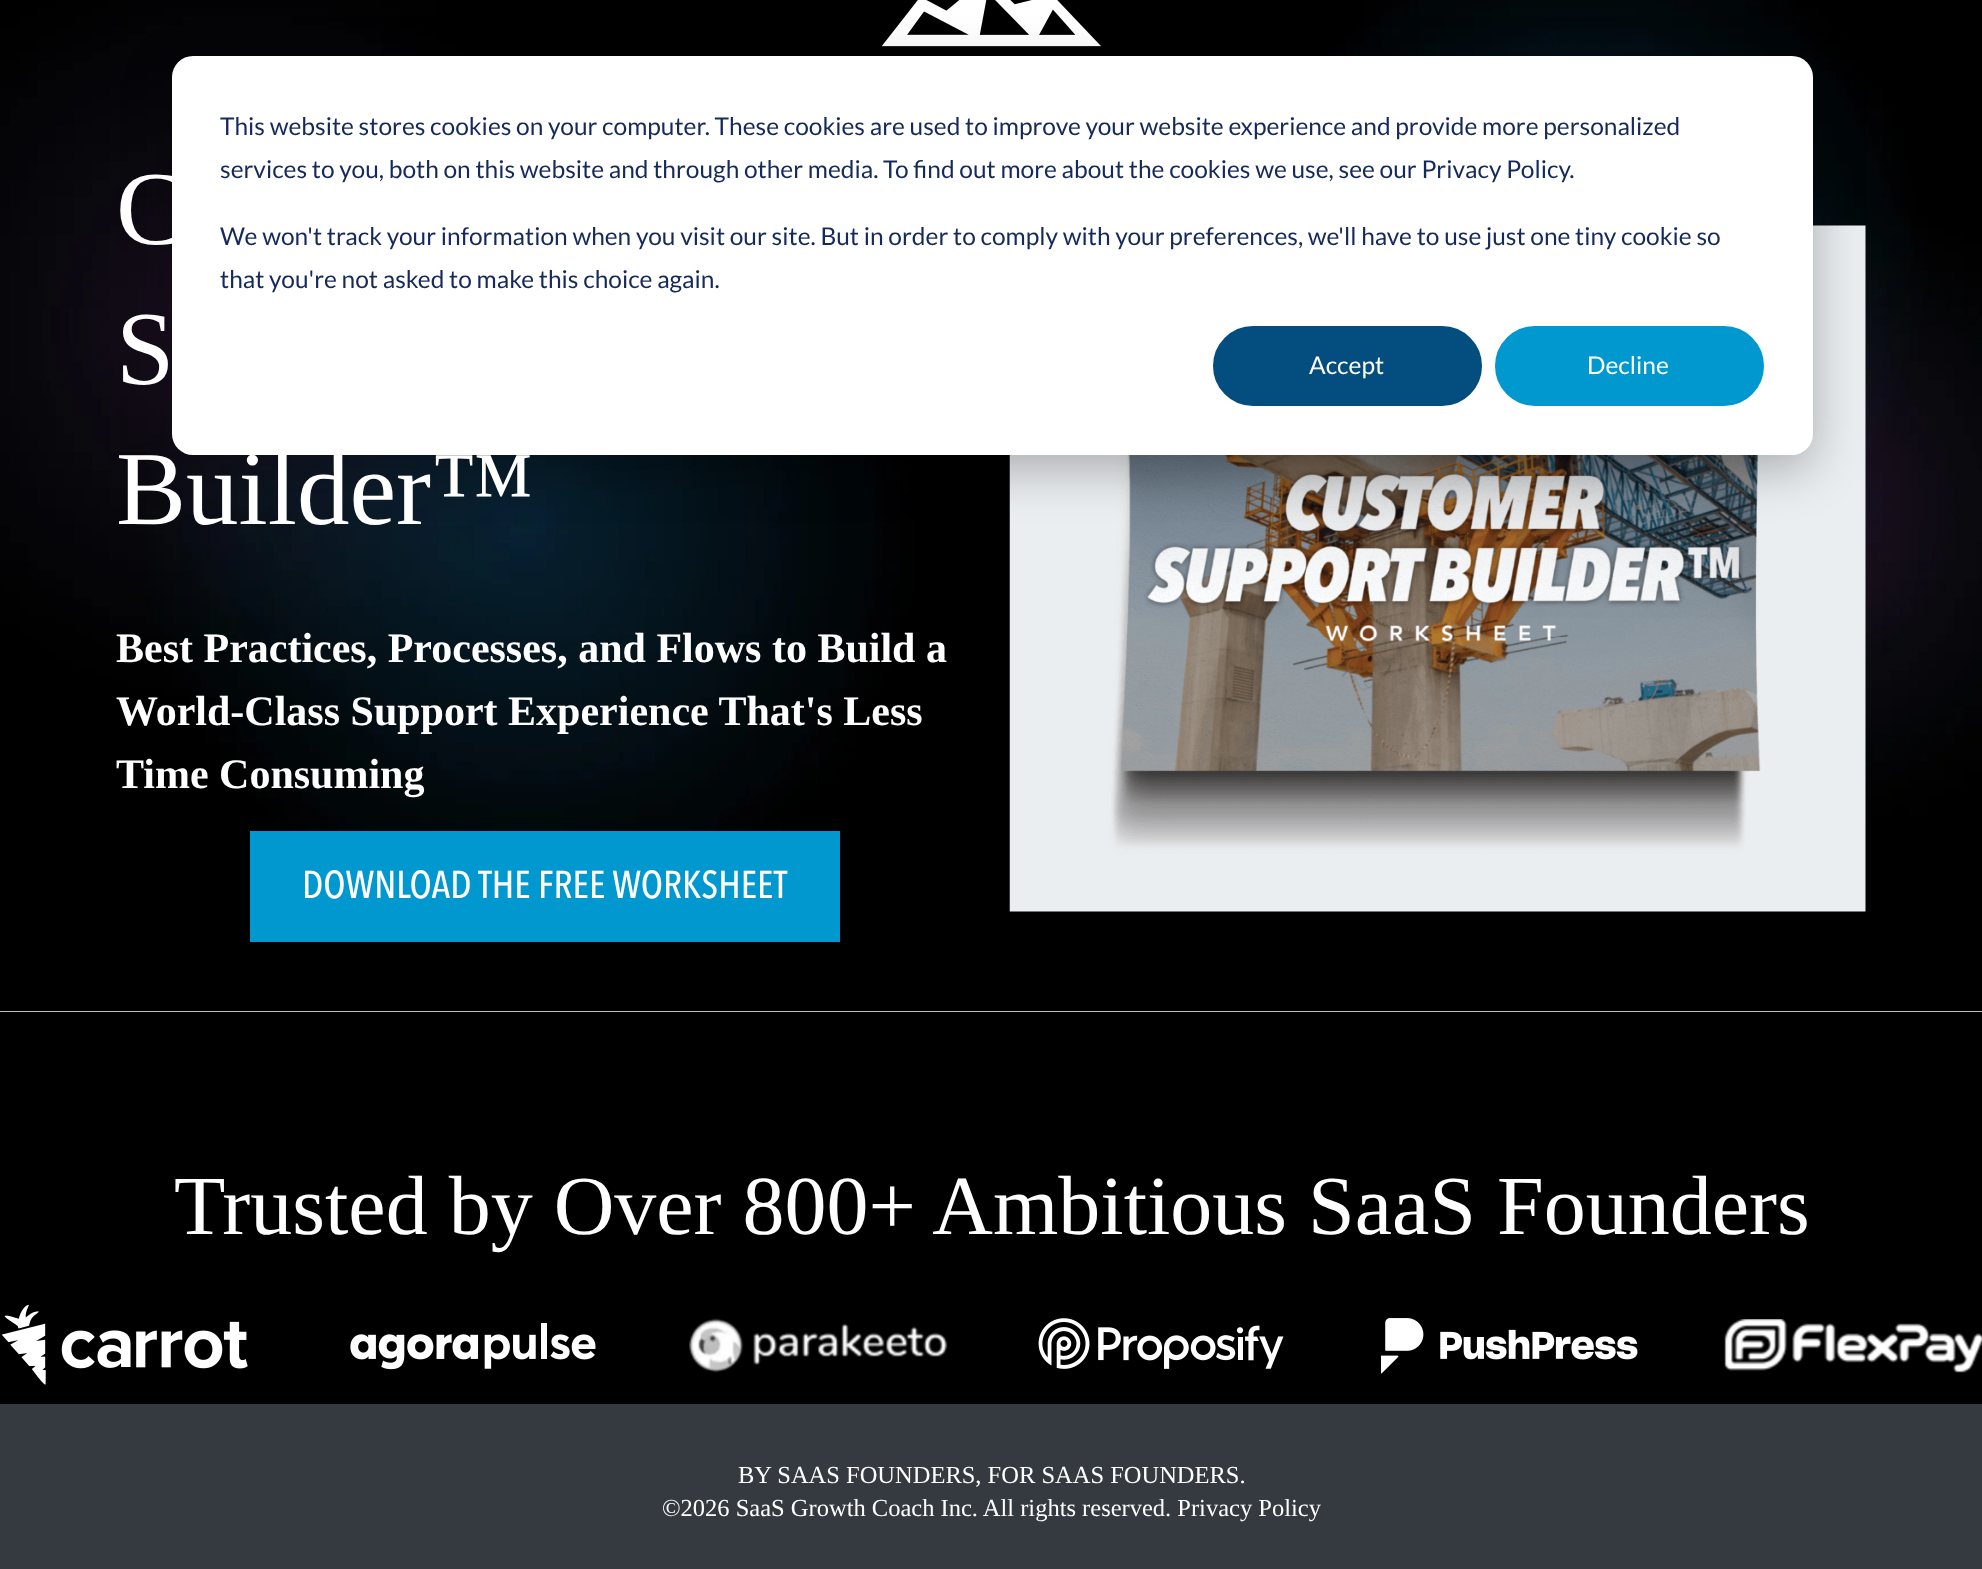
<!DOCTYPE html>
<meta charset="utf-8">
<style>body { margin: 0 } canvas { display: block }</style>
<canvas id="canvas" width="1982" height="1569"></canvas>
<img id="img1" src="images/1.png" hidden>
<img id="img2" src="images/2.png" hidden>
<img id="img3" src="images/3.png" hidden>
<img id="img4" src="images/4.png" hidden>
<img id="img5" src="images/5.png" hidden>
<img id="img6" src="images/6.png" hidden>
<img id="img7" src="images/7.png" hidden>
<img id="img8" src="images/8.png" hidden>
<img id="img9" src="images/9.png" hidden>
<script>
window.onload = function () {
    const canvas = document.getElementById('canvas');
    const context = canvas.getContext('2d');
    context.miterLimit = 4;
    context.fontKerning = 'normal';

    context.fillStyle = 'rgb(255, 255, 255)';
    context.fillRect(0, 0, 1982, 1569);
    context.drawImage(document.getElementById('img1'), 0, 0, 1982, 1012);
    context.drawImage(document.getElementById('img2'), 881, 0, 220, 47);
    context.drawImage(document.getElementById('img3'), 1009, 225, 857, 687);
    context.fillStyle = 'rgba(0, 0, 0, 0.28)';
    context.filter = 'blur(24.5px)';
    context.beginPath();
    context.roundRect(172, 70, 1641, 399, 21);
    context.fill();
    context.filter = 'none';
    context.fillStyle = 'rgb(255, 255, 255)';
    context.beginPath();
    context.roundRect(172, 56, 1641, 399, 21);
    context.fill();
    context.fillStyle = 'rgb(4, 77, 127)';
    context.beginPath();
    context.roundRect(1214, 327, 267, 78, 39);
    context.fill();
    context.strokeStyle = 'rgb(4, 77, 127)';
    context.lineWidth = 2;
    context.stroke();
    context.fillStyle = 'rgb(0, 152, 206)';
    context.beginPath();
    context.roundRect(1496, 327, 267, 78, 39);
    context.fill();
    context.strokeStyle = 'rgb(0, 152, 206)';
    context.stroke();
    context.fillRect(250, 831, 590, 111);
    context.fillStyle = 'rgb(0, 0, 0)';
    context.fillRect(0, 1012, 1982, 392);
    context.drawImage(document.getElementById('img4'), 1, 1304, 247, 81);
    context.drawImage(document.getElementById('img5'), 350, 1323, 246, 47);
    context.drawImage(document.getElementById('img6'), 689, 1318, 259, 55);
    context.drawImage(document.getElementById('img7'), 1038, 1318, 246, 51);
    context.drawImage(document.getElementById('img8'), 1381, 1318, 257, 56);
    context.drawImage(document.getElementById('img9'), 1724, 1319, 258, 54);
    context.fillStyle = 'rgb(52, 58, 64)';
    context.fillRect(0, 1404, 1982, 165);
    context.font = '24.5px Lato';
    context.fillStyle = 'rgb(21, 41, 90)';
    context.fillText('This website stores cookies on your computer. These cookies are used to improve your website experience and provide more personalized', 220, 135);
    context.fillText('services to you, both on this website and through other media. To find out more about the cookies we use, see our Privacy Policy.', 220, 178);
    context.fillText('We won\'t track your information when you visit our site. But in order to comply with your preferences, we\'ll have to use just one tiny cookie so', 220, 245);
    context.fillText('that you\'re not asked to make this choice again.', 220, 288);
    context.fillStyle = 'rgb(255, 255, 255)';
    context.fillText('Accept', 1309, 374);
    context.fillText('Decline', 1587, 374);
    context.font = '105px Liberation Serif';
    context.fillText('C', 116, 244);
    context.fillText('S', 116, 384);
    context.fillText('Builder™', 116, 524);
    context.font = 'bold 42px Liberation Serif';
    context.fillText('Best Practices, Processes, and Flows to Build a', 116, 662);
    context.fillText('World-Class Support Experience That\'s Less', 116, 725);
    context.fillText('Time Consuming', 116, 788);
    context.font = '500 38.5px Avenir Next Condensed';
    context.fillText('DOWNLOAD THE FREE WORKSHEET', 302, 898);
    context.font = '84px Liberation Serif';
    context.fillText('Trusted by Over 800+ Ambitious SaaS Founders', 174, 1234);
    context.font = '24.5px Liberation Serif';
    context.fillText('BY SAAS FOUNDERS, FOR SAAS FOUNDERS.', 738, 1483);
    context.fillText('©2026 SaaS Growth Coach Inc. All rights reserved. Privacy Policy', 662, 1516);
};
</script>
